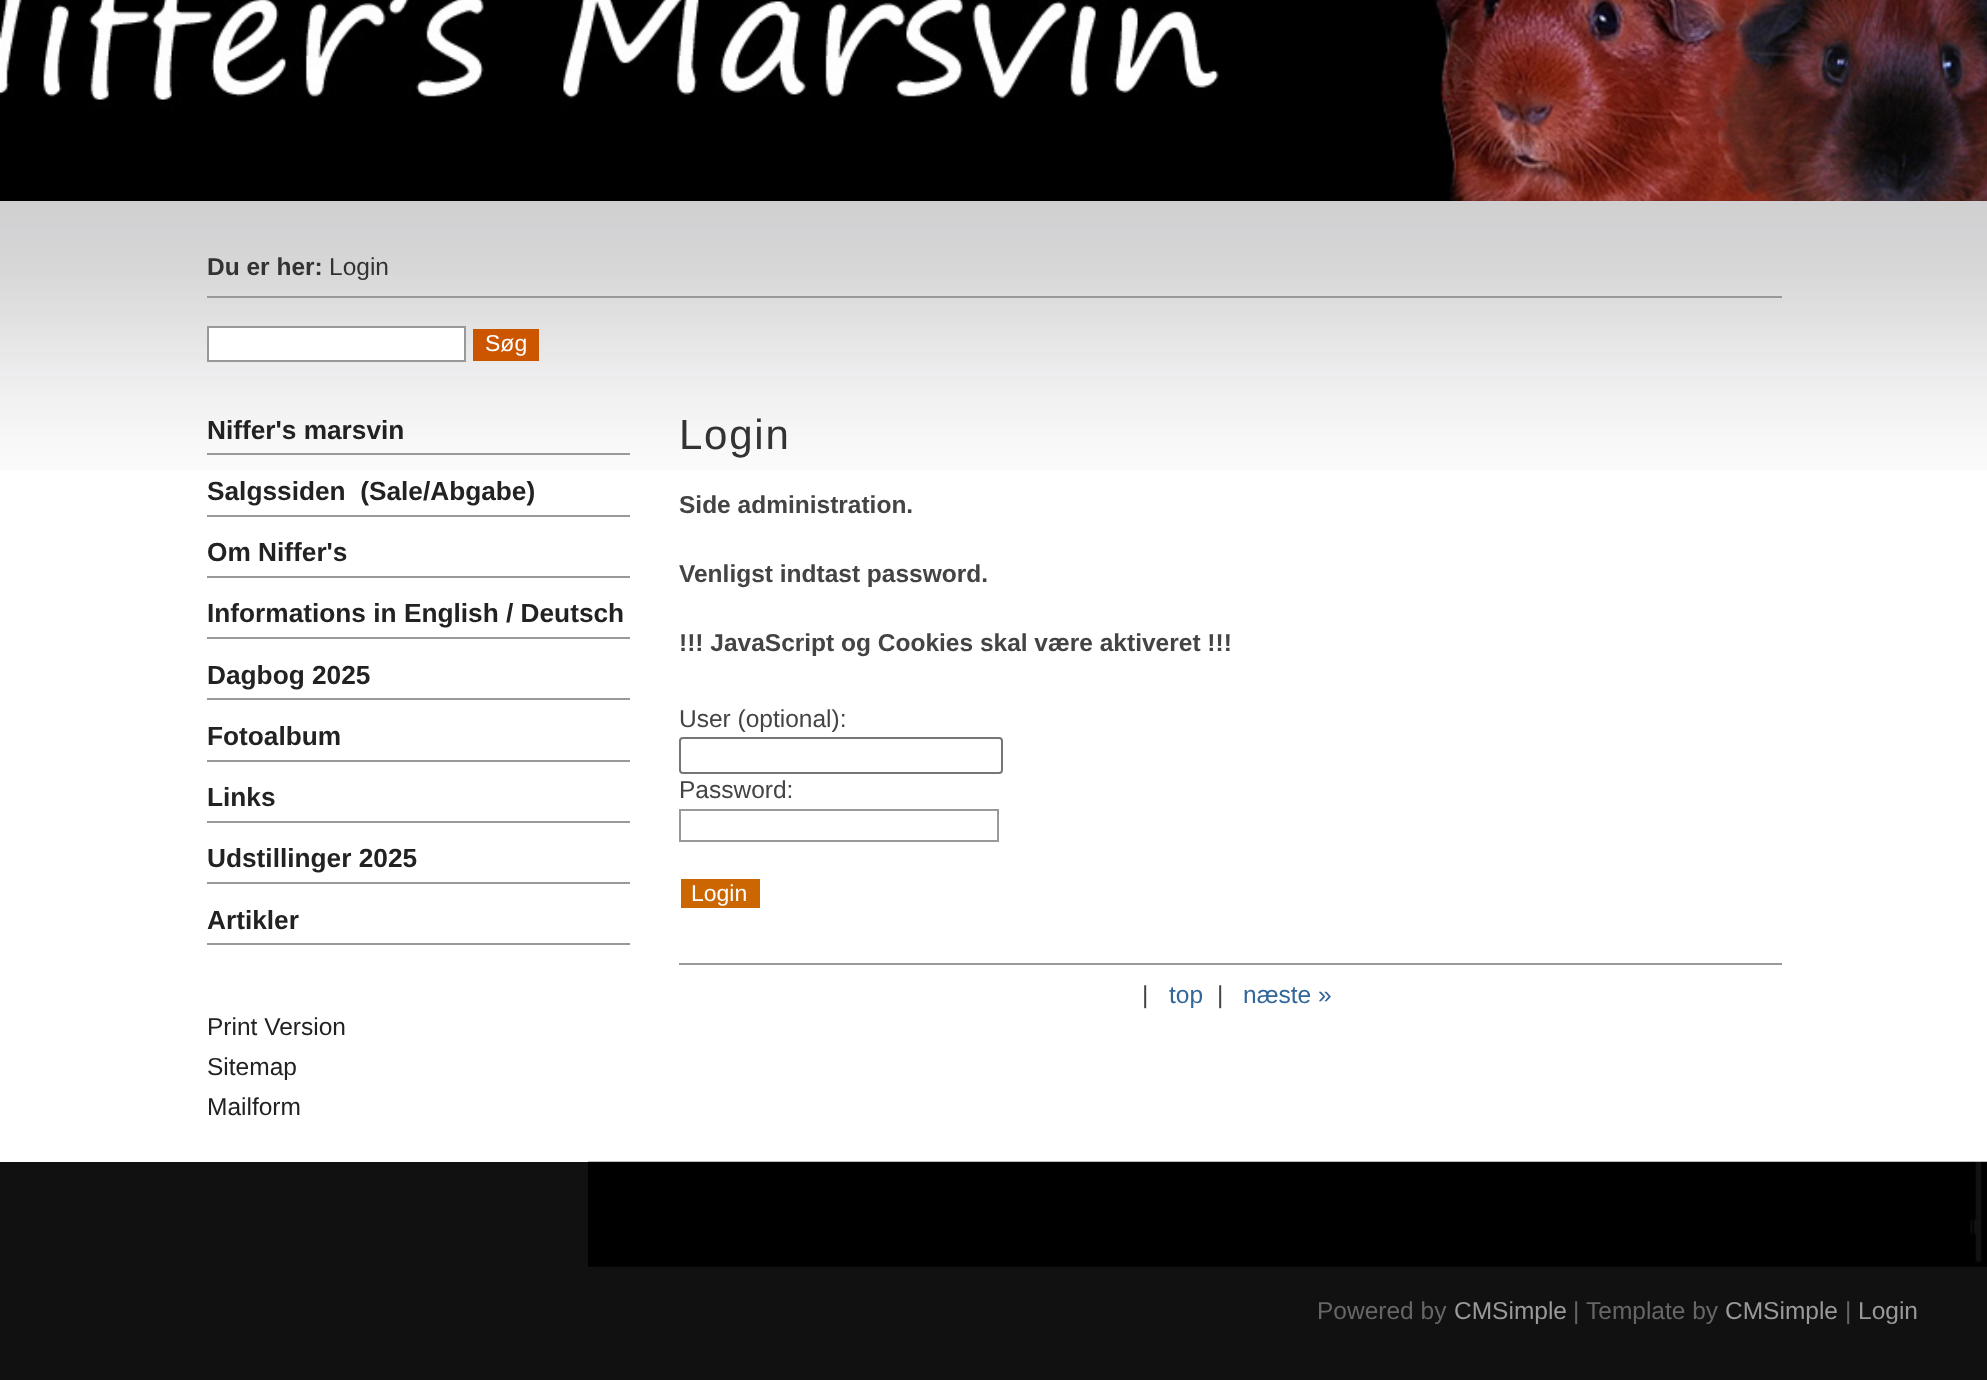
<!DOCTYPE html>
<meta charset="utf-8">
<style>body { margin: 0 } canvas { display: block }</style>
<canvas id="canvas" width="1987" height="1380"></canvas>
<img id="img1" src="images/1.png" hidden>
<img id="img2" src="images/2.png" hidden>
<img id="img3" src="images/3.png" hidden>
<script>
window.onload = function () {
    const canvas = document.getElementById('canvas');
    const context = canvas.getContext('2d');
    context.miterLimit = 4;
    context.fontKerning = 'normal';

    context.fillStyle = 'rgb(17, 17, 17)';
    context.fillRect(0, 0, 1987, 1380);
    context.drawImage(document.getElementById('img1'), 0, 0, 1987, 201);
    context.fillStyle = 'rgb(255, 255, 255)';
    context.fillRect(0, 470, 1987, 692);
    context.drawImage(document.getElementById('img2'), 0, 201, 1987, 269);
    context.fillStyle = 'rgb(153, 153, 153)';
    context.fillRect(207, 296, 1575, 2);
    context.fillStyle = 'rgb(255, 255, 255)';
    context.beginPath();
    context.rect(208, 327, 257, 34);
    context.fill();
    context.strokeStyle = 'rgb(153, 153, 153)';
    context.lineWidth = 2;
    context.stroke();
    context.fillStyle = 'rgb(204, 85, 0)';
    context.fillRect(473, 329, 66, 32);
    context.fillStyle = 'rgb(153, 153, 153)';
    context.fillRect(207, 453, 423, 2);
    context.fillRect(207, 515, 423, 2);
    context.fillRect(207, 576, 423, 2);
    context.fillRect(207, 637, 423, 2);
    context.fillRect(207, 698, 423, 2);
    context.fillRect(207, 760, 423, 2);
    context.fillRect(207, 821, 423, 2);
    context.fillRect(207, 882, 423, 2);
    context.fillRect(207, 943, 423, 2);
    context.beginPath();
    context.roundRect(680, 738, 322, 35, 3);
    context.strokeStyle = 'rgb(118, 118, 118)';
    context.stroke();
    context.strokeStyle = 'rgb(153, 153, 153)';
    context.strokeRect(680, 810, 318, 31);
    context.fillStyle = 'rgb(204, 102, 0)';
    context.fillRect(681, 879, 79, 29);
    context.fillStyle = 'rgb(153, 153, 153)';
    context.fillRect(679, 963, 1103, 2);
    context.drawImage(document.getElementById('img3'), 588, 1161, 1399, 106);
    context.font = 'bold 24.5px Liberation Sans';
    context.fillStyle = 'rgb(51, 51, 51)';
    context.fillText('Du er her:', 207, 275);
    context.font = '24.5px Liberation Sans';
    context.fillText('Login', 329, 275);
    context.font = '23px Liberation Sans';
    context.fillStyle = 'rgb(255, 255, 255)';
    context.fillText('Søg', 485, 351);
    context.font = 'bold 26.25px Liberation Sans';
    context.fillStyle = 'rgb(34, 34, 34)';
    context.fillText('Niffer\'s marsvin', 207, 439);
    context.fillText('Salgssiden  (Sale/Abgabe)', 207, 500);
    context.fillText('Om Niffer\'s', 207, 561);
    context.fillText('Informations in English / Deutsch', 207, 622);
    context.fillText('Dagbog 2025', 207, 684);
    context.fillText('Fotoalbum', 207, 745);
    context.fillText('Links', 207, 806);
    context.fillText('Udstillinger 2025', 207, 867);
    context.fillText('Artikler', 207, 929);
    context.font = '24.5px Liberation Sans';
    context.fillText('Print Version', 207, 1035);
    context.fillText('Sitemap', 207, 1075);
    context.fillText('Mailform', 207, 1115);
    context.letterSpacing = '1.75px';
    context.font = '42px Liberation Sans';
    context.fillStyle = 'rgb(51, 51, 51)';
    context.fillText('Login', 679, 449);
    context.letterSpacing = '0px';
    context.font = 'bold 24.5px Liberation Sans';
    context.fillStyle = 'rgb(68, 68, 68)';
    context.fillText('Side administration.', 679, 513);
    context.fillText('Venligst indtast password.', 679, 582);
    context.fillText('!!! JavaScript og Cookies skal være aktiveret !!!', 679, 651);
    context.font = '24.5px Liberation Sans';
    context.fillText('User (optional):', 679, 727);
    context.fillText('Password:', 679, 798);
    context.font = '23px Liberation Sans';
    context.fillStyle = 'rgb(255, 255, 255)';
    context.fillText('Login', 691, 901);
    context.font = '24.5px Liberation Sans';
    context.fillStyle = 'rgb(68, 68, 68)';
    context.fillText('|', 1142, 1003);
    context.fillStyle = 'rgb(51, 102, 153)';
    context.fillText('top', 1169, 1003);
    context.fillStyle = 'rgb(68, 68, 68)';
    context.fillText('|', 1217, 1003);
    context.fillStyle = 'rgb(51, 102, 153)';
    context.fillText('næste »', 1243, 1003);
    context.fillStyle = 'rgb(102, 102, 102)';
    context.fillText('Powered by', 1317, 1319);
    context.fillStyle = 'rgb(153, 153, 153)';
    context.fillText('CMSimple', 1454, 1319);
    context.fillStyle = 'rgb(102, 102, 102)';
    context.fillText('|', 1573, 1319);
    context.fillText('Template by', 1586, 1319);
    context.fillStyle = 'rgb(153, 153, 153)';
    context.fillText('CMSimple', 1725, 1319);
    context.fillStyle = 'rgb(102, 102, 102)';
    context.fillText('|', 1845, 1319);
    context.fillStyle = 'rgb(153, 153, 153)';
    context.fillText('Login', 1858, 1319);
};
</script>
